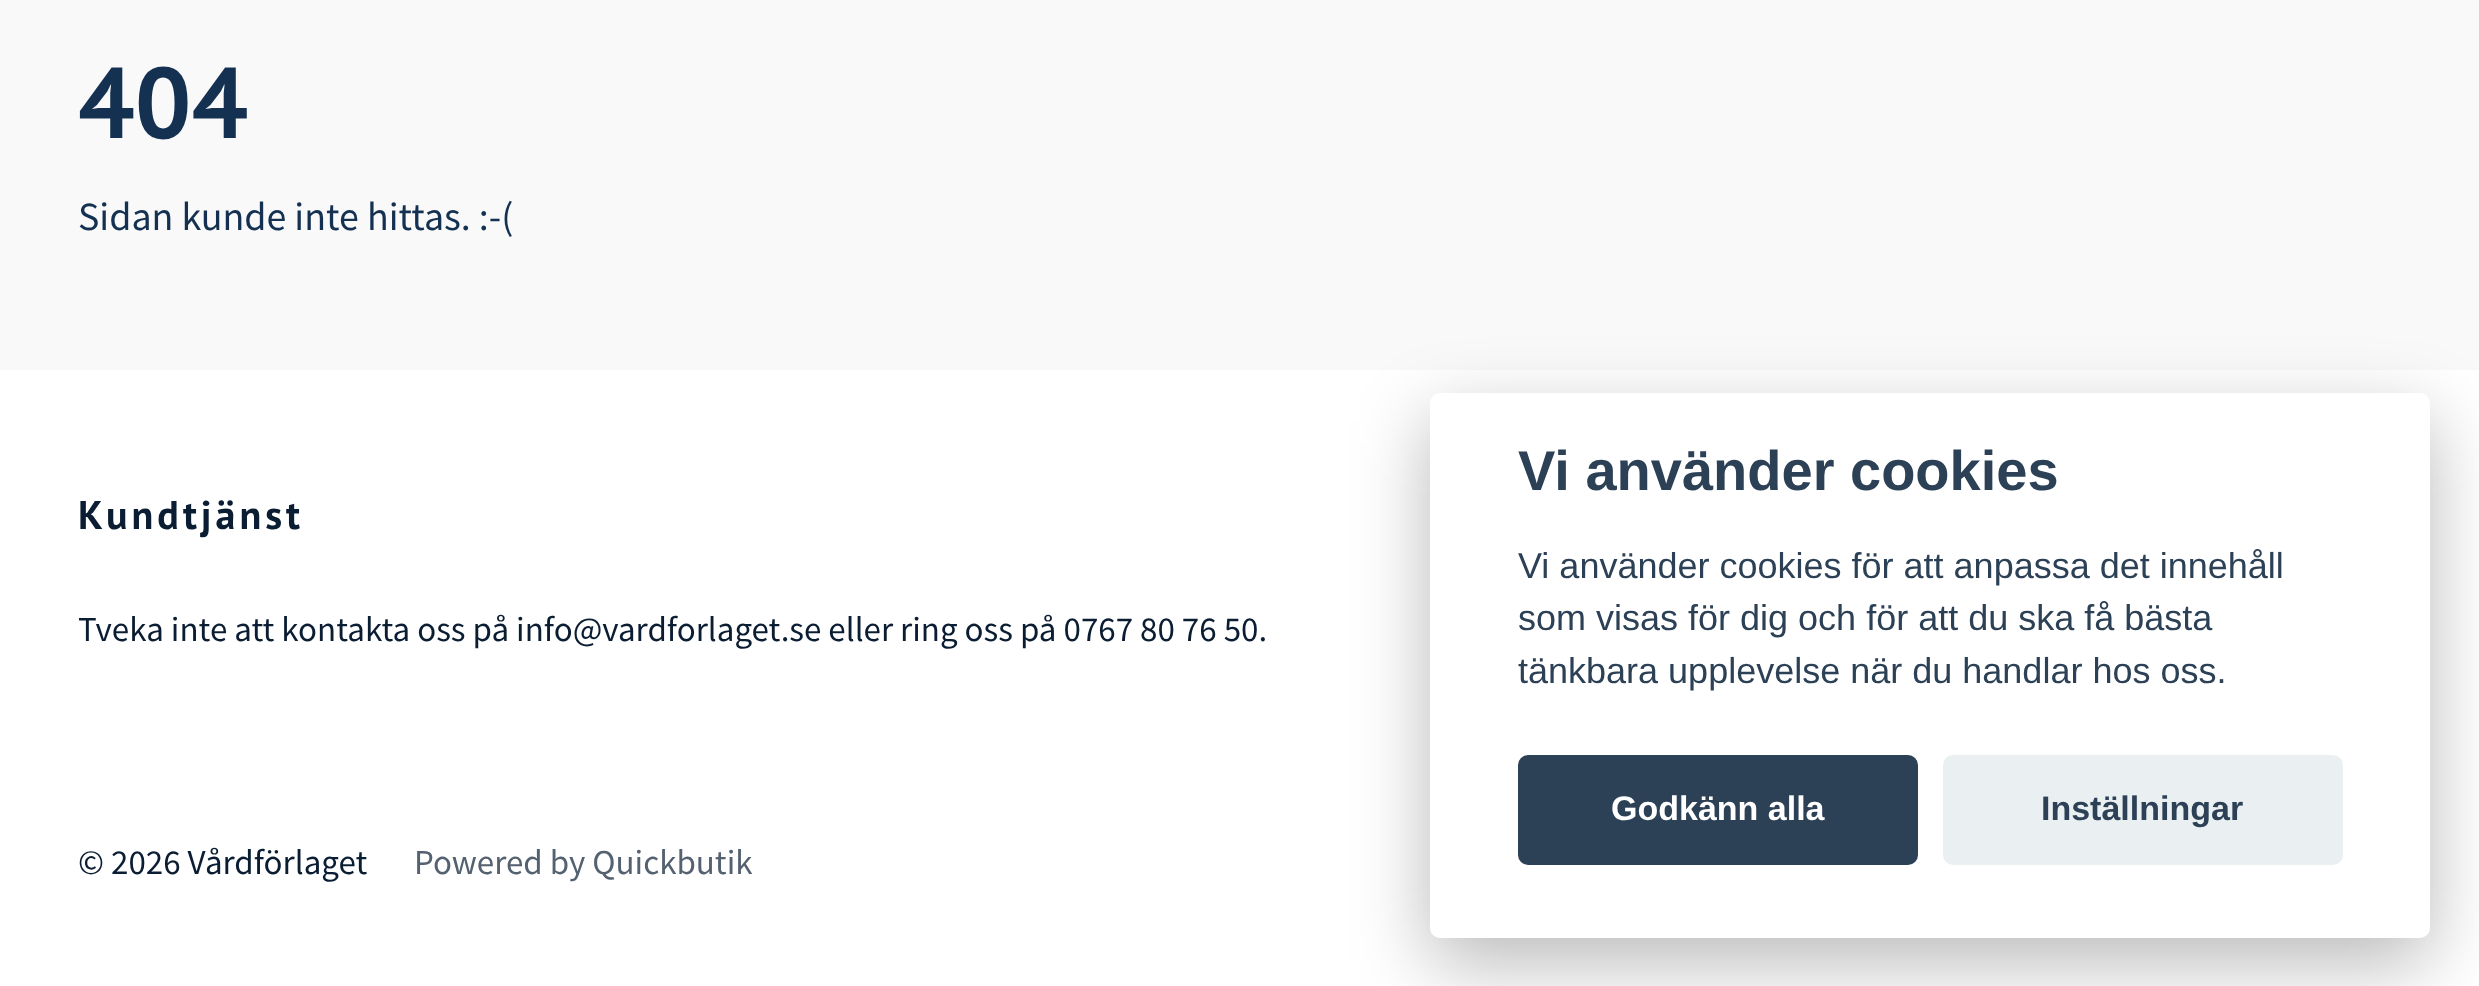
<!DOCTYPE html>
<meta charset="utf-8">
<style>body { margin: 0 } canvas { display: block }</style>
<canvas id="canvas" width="2479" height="986"></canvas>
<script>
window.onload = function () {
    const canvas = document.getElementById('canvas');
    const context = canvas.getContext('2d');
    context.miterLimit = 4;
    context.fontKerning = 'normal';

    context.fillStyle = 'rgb(249, 249, 250)';
    context.fillRect(0, 0, 2479, 986);
    context.fillStyle = 'rgb(255, 255, 255)';
    context.fillRect(0, 370, 2479, 616);
    context.fillStyle = 'rgba(2, 2, 3, 0.28)';
    context.filter = 'blur(37.5px)';
    context.beginPath();
    context.roundRect(1430, 418, 1000, 545, 10);
    context.fill();
    context.filter = 'none';
    context.fillStyle = 'rgb(255, 255, 255)';
    context.beginPath();
    context.roundRect(1430, 393, 1000, 545, 10);
    context.fill();
    context.fillStyle = 'rgb(45, 65, 86)';
    context.beginPath();
    context.roundRect(1518, 755, 400, 110, 10);
    context.fill();
    context.fillStyle = 'rgb(234, 239, 242)';
    context.beginPath();
    context.roundRect(1943, 755, 400, 110, 10);
    context.fill();
    context.font = 'bold 100px PT Sans';
    context.fillStyle = 'rgb(20, 49, 81)';
    context.fillText('404', 78, 138);
    context.font = '40px Source Sans Pro';
    context.fillText('Sidan kunde inte hittas. :-(', 78, 230);
    context.letterSpacing = '4px';
    context.font = 'bold 40px PT Sans';
    context.fillStyle = 'rgb(10, 29, 50)';
    context.fillText('Kundtjänst', 78, 529);
    context.letterSpacing = '0px';
    context.font = '35px Source Sans Pro';
    context.fillText('Tveka inte att kontakta oss på info@vardforlaget.se eller ring oss på 0767 80 76 50.', 78, 641);
    context.fillText('© 2026 Vårdförlaget', 78, 874);
    context.fillStyle = 'rgb(84, 97, 112)';
    context.fillText('Powered by Quickbutik', 414, 874);
    context.font = 'bold 56px Liberation Sans';
    context.fillStyle = 'rgb(45, 65, 86)';
    context.fillText('Vi använder cookies', 1518, 490);
    context.font = '36px Liberation Sans';
    context.fillText('Vi använder cookies för att anpassa det innehåll', 1518, 578);
    context.fillText('som visas för dig och för att du ska få bästa', 1518, 630);
    context.fillText('tänkbara upplevelse när du handlar hos oss.', 1518, 683);
    context.font = 'bold 34px Liberation Sans';
    context.fillStyle = 'rgb(255, 255, 255)';
    context.fillText('Godkänn alla', 1611, 820);
    context.fillStyle = 'rgb(45, 65, 86)';
    context.fillText('Inställningar', 2041, 820);
};
</script>
